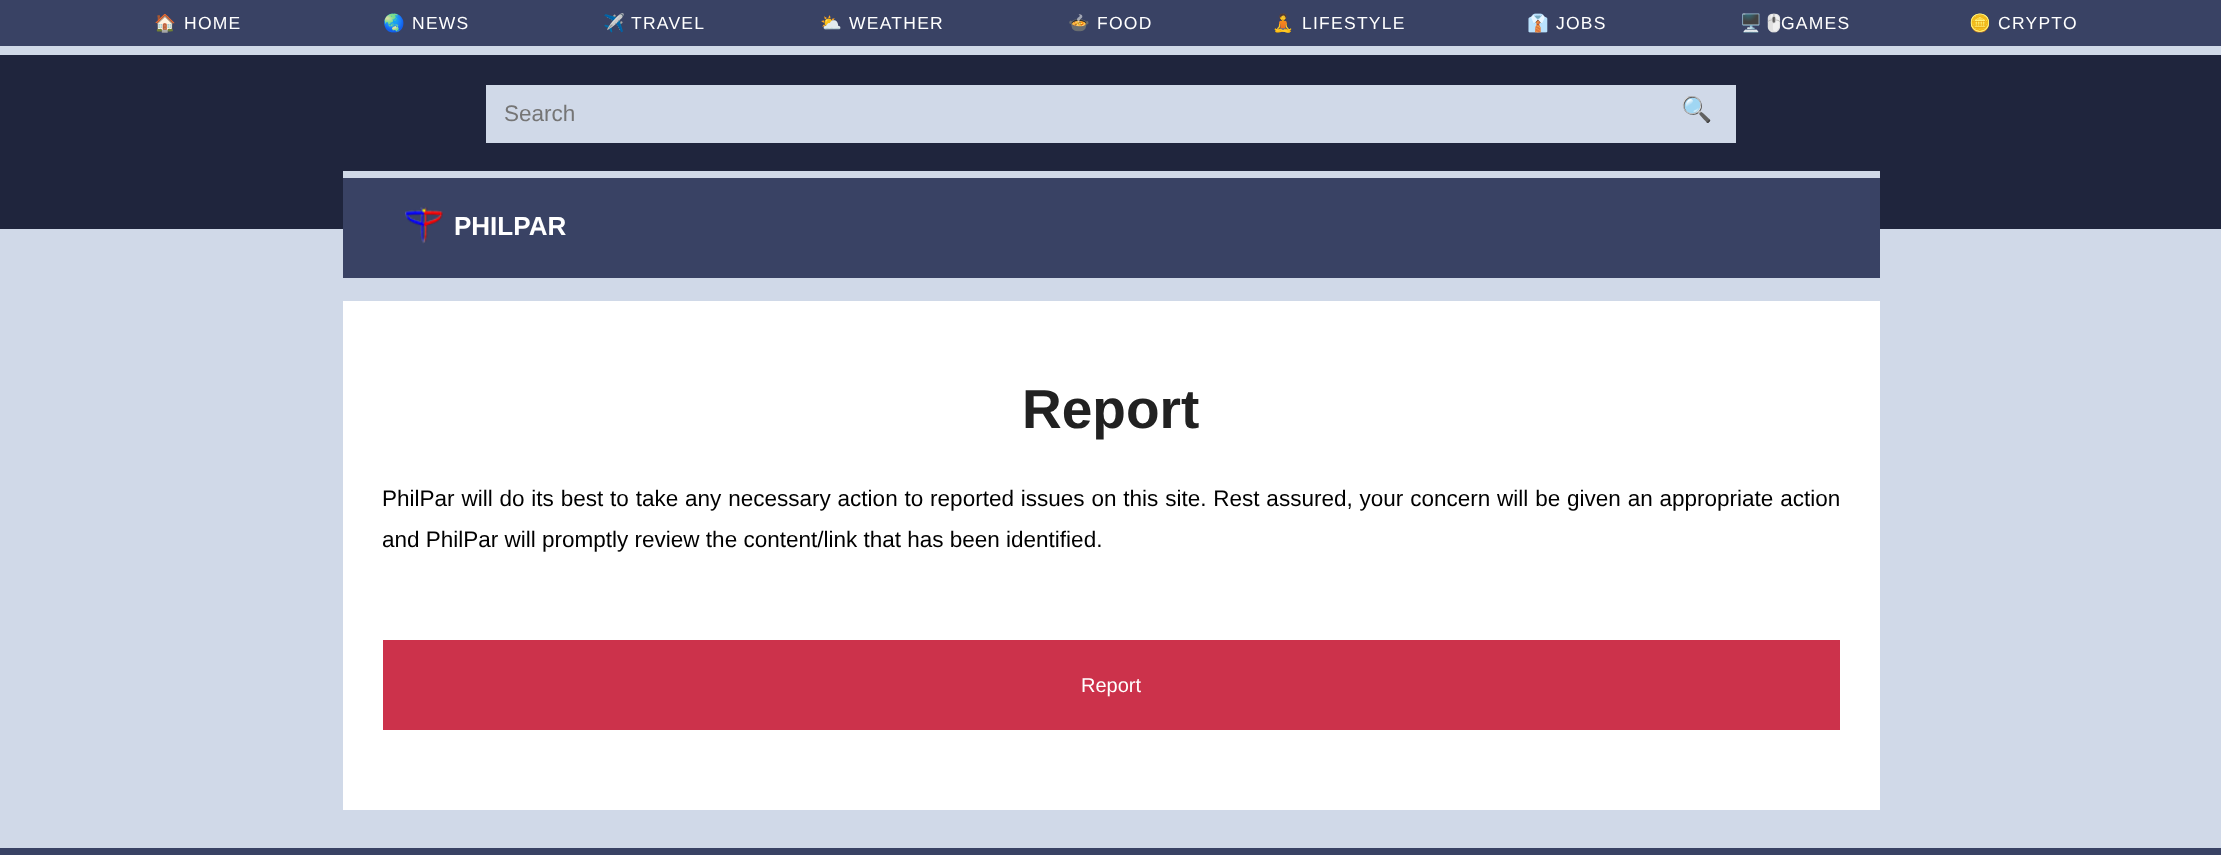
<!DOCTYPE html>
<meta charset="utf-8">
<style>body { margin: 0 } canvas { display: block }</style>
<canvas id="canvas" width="2221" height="855"></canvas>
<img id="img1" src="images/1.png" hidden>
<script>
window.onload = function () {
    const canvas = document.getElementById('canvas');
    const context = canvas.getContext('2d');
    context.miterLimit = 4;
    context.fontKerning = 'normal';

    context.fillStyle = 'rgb(208, 217, 232)';
    context.fillRect(0, 0, 2221, 855);
    context.fillStyle = 'rgb(57, 66, 100)';
    context.fillRect(0, 0, 2221, 46);
    context.fillStyle = 'rgb(31, 37, 61)';
    context.fillRect(0, 55, 2221, 174);
    context.fillStyle = 'rgb(208, 217, 232)';
    context.fillRect(486, 85, 1250, 58);
    context.fillStyle = 'rgb(57, 66, 100)';
    context.fillRect(343, 178, 1537, 100);
    context.fillStyle = 'rgb(208, 217, 232)';
    context.fillRect(343, 171, 1537, 7);
    context.drawImage(document.getElementById('img1'), 405, 207, 38, 37);
    context.fillStyle = 'rgb(255, 255, 255)';
    context.fillRect(343, 301, 1537, 509);
    context.fillStyle = 'rgb(204, 50, 75)';
    context.fillRect(383, 640, 1457, 90);
    context.fillStyle = 'rgb(57, 66, 100)';
    context.fillRect(0, 848, 2221, 7);
    context.letterSpacing = '1.25px';
    context.font = '17.5px Noto Color Emoji';
    context.fillStyle = 'rgb(255, 255, 255)';
    context.fillText('🏠', 154, 29);
    context.font = '17.5px Liberation Sans';
    context.fillText('HOME', 184, 29);
    context.font = '17.5px Noto Color Emoji';
    context.fillText('🌏', 383, 29);
    context.font = '17.5px Liberation Sans';
    context.fillText('NEWS', 412, 29);
    context.font = '17.5px Noto Color Emoji';
    context.fillText('✈️', 603, 29);
    context.font = '17.5px Liberation Sans';
    context.fillText('TRAVEL', 631, 29);
    context.font = '17.5px Noto Color Emoji';
    context.fillText('⛅', 820, 29);
    context.font = '17.5px Liberation Sans';
    context.fillText('WEATHER', 849, 29);
    context.font = '17.5px Noto Color Emoji';
    context.fillText('🍲', 1068, 29);
    context.font = '17.5px Liberation Sans';
    context.fillText('FOOD', 1097, 29);
    context.font = '17.5px Noto Color Emoji';
    context.fillText('🧘', 1272, 29);
    context.font = '17.5px Liberation Sans';
    context.fillText('LIFESTYLE', 1302, 29);
    context.font = '17.5px Noto Color Emoji';
    context.fillText('👔', 1527, 29);
    context.font = '17.5px Liberation Sans';
    context.fillText('JOBS', 1556, 29);
    context.font = '17.5px Noto Color Emoji';
    context.fillText('🖥️🖱', 1740, 29);
    context.font = '17.5px Liberation Sans';
    context.fillText('GAMES', 1781, 29);
    context.font = '17.5px Noto Color Emoji';
    context.fillText('🪙', 1969, 29);
    context.font = '17.5px Liberation Sans';
    context.fillText('CRYPTO', 1998, 29);
    context.letterSpacing = '0px';
    context.font = '22.5px Liberation Sans';
    context.fillStyle = 'rgb(117, 117, 117)';
    context.fillText('Search', 504, 121);
    context.font = '25px Noto Color Emoji';
    context.fillStyle = 'rgb(31, 37, 61)';
    context.fillText('🔍', 1681, 118);
    context.font = 'bold 26px Liberation Sans';
    context.fillStyle = 'rgb(255, 255, 255)';
    context.fillText('PHILPAR', 454, 235);
    context.font = 'bold 55px Liberation Sans';
    context.fillStyle = 'rgb(33, 33, 33)';
    context.fillText('Report', 1022, 428);
    context.wordSpacing = '0.6px';
    context.font = '22.5px Liberation Sans';
    context.fillStyle = 'rgb(0, 0, 0)';
    context.fillText('PhilPar will do its best to take any necessary action to reported issues on this site. Rest assured, your concern will be given an appropriate action', 382, 506);
    context.wordSpacing = '0px';
    context.fillText('and PhilPar will promptly review the content/link that has been identified.', 382, 547);
    context.font = '20px Liberation Sans';
    context.fillStyle = 'rgb(255, 255, 255)';
    context.fillText('Report', 1081, 692);
};
</script>
